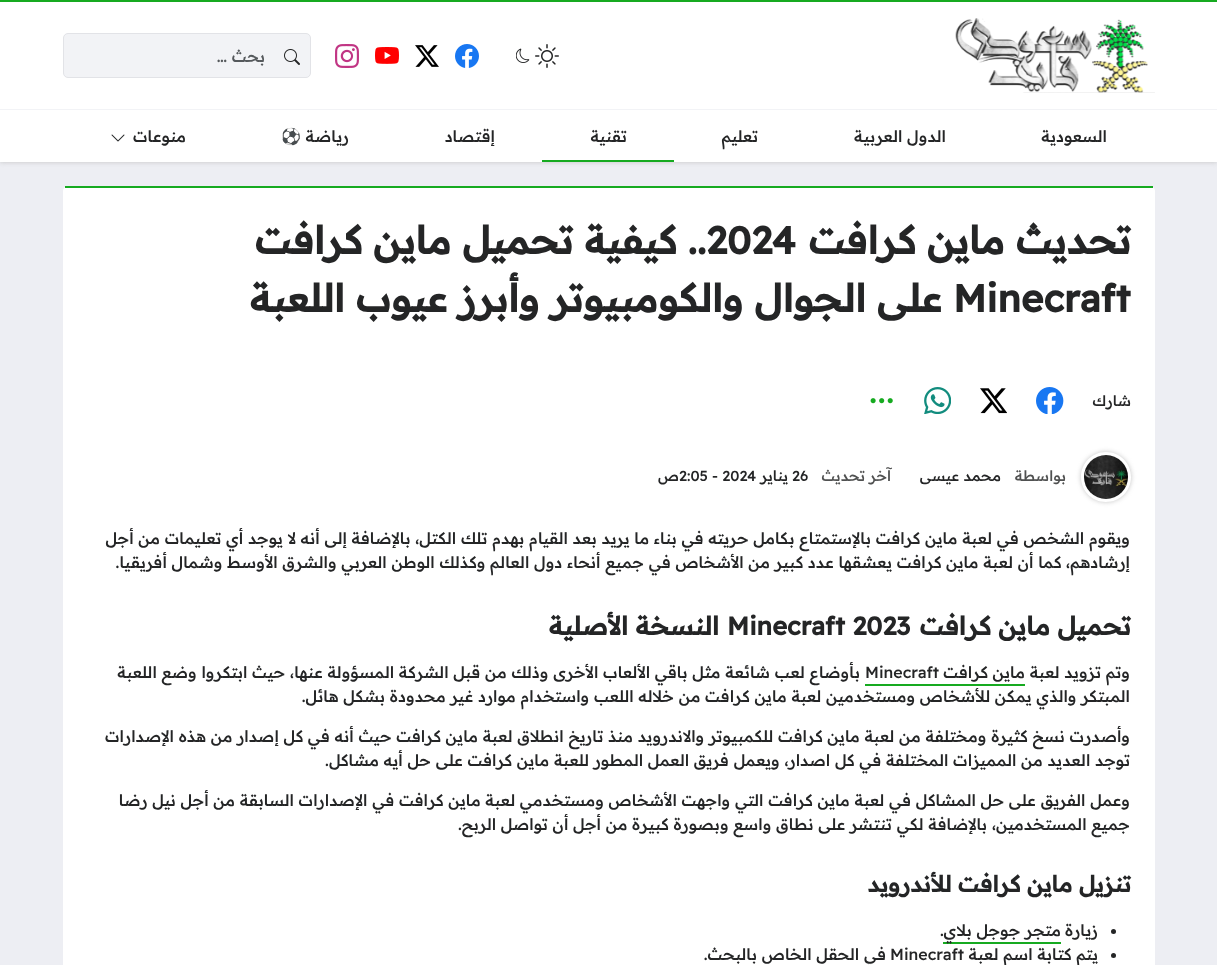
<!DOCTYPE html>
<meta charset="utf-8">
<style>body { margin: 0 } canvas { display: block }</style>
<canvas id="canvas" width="1217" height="965"></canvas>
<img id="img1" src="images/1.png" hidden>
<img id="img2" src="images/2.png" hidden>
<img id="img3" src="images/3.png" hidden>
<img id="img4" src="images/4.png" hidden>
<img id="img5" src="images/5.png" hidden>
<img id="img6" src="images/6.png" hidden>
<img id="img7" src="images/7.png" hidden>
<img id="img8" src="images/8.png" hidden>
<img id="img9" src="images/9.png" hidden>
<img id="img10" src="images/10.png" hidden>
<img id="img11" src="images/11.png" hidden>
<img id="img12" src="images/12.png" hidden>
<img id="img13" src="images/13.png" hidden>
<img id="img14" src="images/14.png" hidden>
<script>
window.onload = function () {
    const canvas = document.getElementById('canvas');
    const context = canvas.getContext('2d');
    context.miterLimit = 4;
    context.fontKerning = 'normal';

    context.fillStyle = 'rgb(237, 238, 243)';
    context.fillRect(0, 0, 1217, 965);
    context.fillStyle = 'rgb(195, 195, 195)';
    context.filter = 'blur(2.5px)';
    context.beginPath();
    context.rect(0, 0, 1217, 162);
    context.fill();
    context.filter = 'none';
    context.fillStyle = 'rgb(22, 170, 32)';
    context.fillRect(0, 0, 1217, 2);
    context.fillStyle = 'rgb(255, 255, 255)';
    context.fillRect(0, 2, 1217, 107);
    context.drawImage(document.getElementById('img1'), 955, 18, 200, 75);
    context.drawImage(document.getElementById('img2'), 535, 44, 24, 24);
    context.drawImage(document.getElementById('img3'), 516, 48, 14, 15);
    context.drawImage(document.getElementById('img4'), 455, 44, 24, 24);
    context.drawImage(document.getElementById('img5'), 415, 45, 24, 22);
    context.drawImage(document.getElementById('img6'), 375, 47, 24, 17);
    context.drawImage(document.getElementById('img7'), 335, 44, 24, 24);
    context.fillStyle = 'rgb(242, 243, 246)';
    context.beginPath();
    context.roundRect(63.5, 33.5, 247, 44, 4.5);
    context.fill();
    context.strokeStyle = 'rgb(226, 227, 231)';
    context.stroke();
    context.drawImage(document.getElementById('img8'), 284, 49, 16, 16);
    context.fillStyle = 'rgb(255, 255, 255)';
    context.fillRect(0, 110, 1217, 52);
    context.fillStyle = 'rgb(242, 243, 246)';
    context.fillRect(0, 109, 1217, 1);
    context.fillStyle = 'rgb(22, 170, 32)';
    context.fillRect(542, 160, 132, 2);
    context.drawImage(document.getElementById('img9'), 111, 134, 14, 8);
    context.fillStyle = 'rgb(255, 255, 255)';
    context.beginPath();
    context.roundRect(63, 186, 1092, 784, 5);
    context.fill();
    context.fillStyle = 'rgb(22, 170, 32)';
    context.fillRect(65, 186, 1088, 2);
    context.drawImage(document.getElementById('img10'), 1036, 387, 28, 27);
    context.drawImage(document.getElementById('img11'), 980, 388, 27, 26);
    context.drawImage(document.getElementById('img12'), 924, 387, 27, 27);
    context.drawImage(document.getElementById('img13'), 870, 398, 23, 6);
    context.save();
    context.beginPath();
    context.moveTo(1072, 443);
    context.lineTo(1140, 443);
    context.lineTo(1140, 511);
    context.lineTo(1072, 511);
    context.closePath();
    context.moveTo(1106, 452);
    context.bezierCurveTo(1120, 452, 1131, 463, 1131, 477);
    context.bezierCurveTo(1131, 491, 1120, 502, 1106, 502);
    context.bezierCurveTo(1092, 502, 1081, 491, 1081, 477);
    context.bezierCurveTo(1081, 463, 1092, 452, 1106, 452);
    context.closePath();
    context.clip('evenodd');
    context.fillStyle = 'rgb(195, 195, 195)';
    context.filter = 'blur(2.5px)';
    context.beginPath();
    context.roundRect(1081, 452, 50, 50, 25);
    context.fill();
    context.filter = 'none';
    context.restore();
    context.drawImage(document.getElementById('img14'), 1084, 455, 44, 44);
    context.fillRect(865, 684, 160, 2);
    context.fillStyle = 'rgb(36, 37, 38)';
    context.beginPath();
    context.arc(1113.5, 931.5, 2.5, 0, 2 * Math.PI);
    context.fill();
    context.fillStyle = 'rgb(22, 170, 32)';
    context.fillRect(943, 942, 118, 2);
    context.fillStyle = 'rgb(36, 37, 38)';
    context.beginPath();
    context.arc(1113.5, 955.5, 2.5, 0, 2 * Math.PI);
    context.fill();
    context.direction = 'rtl';
    context.font = '500 16px Readex Pro';
    context.fillStyle = 'rgb(85, 89, 92)';
    context.fillText('بحث …', 265, 62);
    context.fillStyle = 'rgb(36, 37, 38)';
    context.fillText('السعودية', 1107, 142);
    context.fillText('الدول العربية', 946, 142);
    context.fillText('تعليم', 758, 142);
    context.fillText('تقنية', 627, 142);
    context.fillText('إقتصاد', 495, 142);
    context.fillText('رياضة', 349, 142);
    context.font = '16px Noto Color Emoji';
    context.fillText('⚽', 301, 142);
    context.font = '500 16px Readex Pro';
    context.fillText('منوعات', 186, 142);
    context.font = 'bold 38.4px Readex Pro';
    context.fillText('تحديث ماين كرافت', 1131, 254);
    context.direction = 'ltr';
    context.fillText('2024', 706, 254);
    context.direction = 'rtl';
    context.fillText('.. كيفية تحميل ماين كرافت', 706, 254);
    context.direction = 'ltr';
    context.fillText('Minecraft', 953, 312);
    context.direction = 'rtl';
    context.fillText('على الجوال والكومبيوتر وأبرز عيوب اللعبة', 942, 312);
    context.font = '500 14.5px Readex Pro';
    context.fillText('شارك', 1131, 406);
    context.fillStyle = 'rgb(80, 81, 81)';
    context.fillText('بواسطة', 1066, 481);
    context.fillStyle = 'rgb(36, 37, 38)';
    context.fillText('محمد عيسى', 1001, 481);
    context.fillStyle = 'rgb(80, 81, 81)';
    context.fillText('آخر تحديث', 891, 481);
    context.direction = 'ltr';
    context.fillStyle = 'rgb(36, 37, 38)';
    context.fillText('26', 792, 481);
    context.direction = 'rtl';
    context.fillText('يناير', 788, 481);
    context.direction = 'ltr';
    context.fillText('2:05 - 2024', 679, 481);
    context.direction = 'rtl';
    context.fillText('ص', 679, 481);
    context.font = '500 16px Readex Pro';
    context.fillText('ويقوم الشخص في لعبة ماين كرافت بالإستمتاع بكامل حريته في بناء ما يريد بعد القيام بهدم تلك الكتل، بالإضافة إلى أنه لا يوجد أي تعليمات من أجل', 1130, 544);
    context.fillText('إرشادهم، كما أن لعبة ماين كرافت يعشقها عدد كبير من الأشخاص في جميع أنحاء دول العالم وكذلك الوطن العربي والشرق الأوسط وشمال أفريقيا.', 1130, 568);
    context.font = 'bold 25.5px Readex Pro';
    context.fillText('تحميل ماين كرافت', 1131, 635);
    context.direction = 'ltr';
    context.fillText('Minecraft 2023', 727, 635);
    context.direction = 'rtl';
    context.fillText('النسخة الأصلية', 719, 635);
    context.font = '500 16px Readex Pro';
    context.fillText('وتم تزويد لعبة', 1130, 678);
    context.fillText('ماين كرافت', 1025, 678);
    context.direction = 'ltr';
    context.fillText('Minecraft', 865, 678);
    context.direction = 'rtl';
    context.fillText('بأوضاع لعب شائعة مثل باقي الألعاب الأخرى وذلك من قبل الشركة المسؤولة عنها، حيث ابتكروا وضع اللعبة', 860, 678);
    context.fillText('المبتكر والذي يمكن للأشخاص ومستخدمين لعبة ماين كرافت من خلاله اللعب واستخدام موارد غير محدودة بشكل هائل.', 1130, 702);
    context.fillText('وأصدرت نسخ كثيرة ومختلفة من لعبة ماين كرافت للكمبيوتر والاندرويد منذ تاريخ انطلاق لعبة ماين كرافت حيث أنه في كل إصدار من هذه الإصدارات', 1130, 742);
    context.fillText('توجد العديد من المميزات المختلفة في كل اصدار، ويعمل فريق العمل المطور للعبة ماين كرافت على حل أيه مشاكل.', 1130, 766);
    context.fillText('وعمل الفريق على حل المشاكل في لعبة ماين كرافت التي واجهت الأشخاص ومستخدمي لعبة ماين كرافت في الإصدارات السابقة من أجل نيل رضا', 1130, 806);
    context.fillText('جميع المستخدمين، بالإضافة لكي تنتشر على نطاق واسع وبصورة كبيرة من أجل أن تواصل الربح.', 1130, 830);
    context.font = 'bold 22.4px Readex Pro';
    context.fillText('تنزيل ماين كرافت للأندرويد', 1131, 892);
    context.font = '500 16px Readex Pro';
    context.fillText('زيارة', 1098, 936);
    context.fillText('متجر جوجل بلاي', 1061, 936);
    context.direction = 'ltr';
    context.fillText('.', 940, 936);
    context.direction = 'rtl';
    context.fillText('يتم كتابة اسم لعبة', 1098, 960);
    context.direction = 'ltr';
    context.fillText('Minecraft', 890, 960);
    context.direction = 'rtl';
    context.fillText('في الحقل الخاص بالبحث.', 886, 960);
};
</script>
